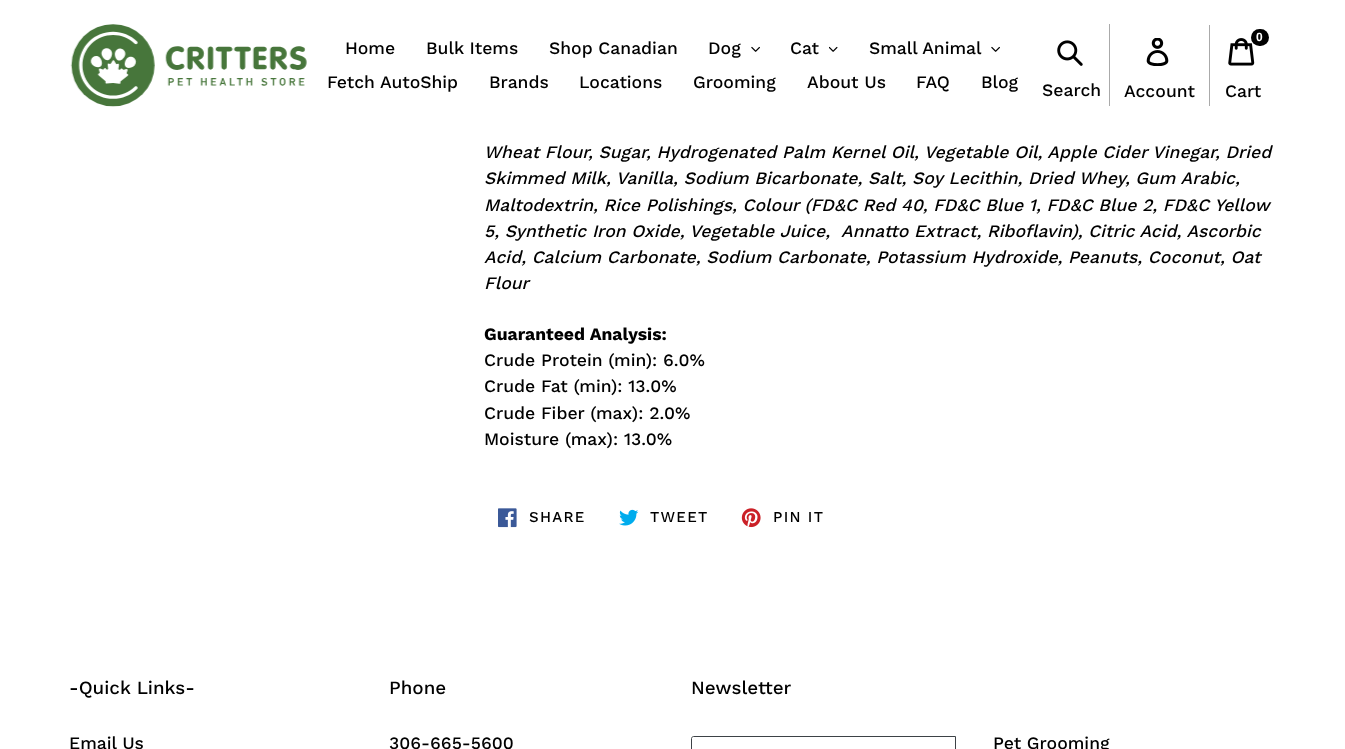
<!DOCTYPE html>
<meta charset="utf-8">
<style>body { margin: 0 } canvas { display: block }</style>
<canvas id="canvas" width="1345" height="749"></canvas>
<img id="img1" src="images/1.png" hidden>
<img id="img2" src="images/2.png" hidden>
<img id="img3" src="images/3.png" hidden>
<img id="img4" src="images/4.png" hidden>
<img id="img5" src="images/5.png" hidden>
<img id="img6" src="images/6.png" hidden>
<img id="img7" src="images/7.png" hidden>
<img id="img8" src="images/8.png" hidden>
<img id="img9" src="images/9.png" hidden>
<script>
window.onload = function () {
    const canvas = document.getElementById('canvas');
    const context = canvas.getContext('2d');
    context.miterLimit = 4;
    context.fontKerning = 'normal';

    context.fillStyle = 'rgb(255, 255, 255)';
    context.fillRect(0, 0, 1345, 749);
    context.drawImage(document.getElementById('img1'), 70, 24, 237, 83);
    context.drawImage(document.getElementById('img2'), 751, 46, 9, 6);
    context.drawImage(document.getElementById('img3'), 829, 46, 9, 6);
    context.drawImage(document.getElementById('img2'), 991, 46, 9, 6);
    context.fillStyle = 'rgb(170, 170, 170)';
    context.fillRect(1109, 24, 1, 82);
    context.drawImage(document.getElementById('img4'), 1057, 40, 26, 26);
    context.fillRect(1209, 25, 1, 81);
    context.drawImage(document.getElementById('img5'), 1146, 38, 23, 28);
    context.drawImage(document.getElementById('img6'), 1228, 38, 27, 28);
    context.fillStyle = 'rgb(0, 0, 0)';
    context.beginPath();
    context.roundRect(1251, 29, 18, 17, 8.5);
    context.fill();
    context.drawImage(document.getElementById('img7'), 498, 508, 19, 20);
    context.drawImage(document.getElementById('img8'), 619, 509, 20, 17);
    context.drawImage(document.getElementById('img9'), 741, 508, 20, 20);
    context.beginPath();
    context.moveTo(693.5, 736.5);
    context.lineTo(955.5, 736.5);
    context.lineTo(955.5, 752.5);
    context.lineTo(693.5, 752.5);
    context.bezierCurveTo(692.5, 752.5, 691.5, 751.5, 691.5, 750.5);
    context.lineTo(691.5, 738.5);
    context.bezierCurveTo(691.5, 737.5, 692.5, 736.5, 693.5, 736.5);
    context.closePath();
    context.strokeStyle = 'rgb(61, 66, 70)';
    context.stroke();
    context.font = '500 17.5px Work Sans';
    context.fillText('Home', 345, 54);
    context.fillText('Bulk Items', 426, 54);
    context.fillText('Shop Canadian', 549, 54);
    context.fillText('Dog', 708, 54);
    context.fillText('Cat', 790, 54);
    context.fillText('Small Animal', 869, 54);
    context.fillText('Fetch AutoShip', 327, 88);
    context.fillText('Brands', 489, 88);
    context.fillText('Locations', 579, 88);
    context.fillText('Grooming', 693, 88);
    context.fillText('About Us', 807, 88);
    context.fillText('FAQ', 916, 88);
    context.fillText('Blog', 981, 88);
    context.fillText('Search', 1042, 96);
    context.fillText('Account', 1124, 97);
    context.font = 'bold 12px Liberation Sans';
    context.fillStyle = 'rgb(255, 255, 255)';
    context.fillText('0', 1256, 41);
    context.font = '500 17.5px Work Sans';
    context.fillStyle = 'rgb(0, 0, 0)';
    context.fillText('Cart', 1225, 97);
    context.font = 'italic 500 17.5px Work Sans';
    context.fillText('Wheat Flour, Sugar, Hydrogenated Palm Kernel Oil, Vegetable Oil, Apple Cider Vinegar, Dried', 484, 158);
    context.fillText('Skimmed Milk, Vanilla, Sodium Bicarbonate, Salt, Soy Lecithin, Dried Whey, Gum Arabic,', 484, 184);
    context.fillText('Maltodextrin, Rice Polishings, Colour (FD&C Red 40, FD&C Blue 1, FD&C Blue 2, FD&C Yellow', 484, 211);
    context.fillText('5, Synthetic Iron Oxide, Vegetable Juice,', 484, 237);
    context.fillText('Annatto Extract, Riboflavin), Citric Acid, Ascorbic', 841, 237);
    context.fillText('Acid, Calcium Carbonate, Sodium Carbonate, Potassium Hydroxide, Peanuts, Coconut, Oat', 484, 263);
    context.fillText('Flour', 484, 289);
    context.font = 'bold 17.5px Work Sans';
    context.fillText('Guaranteed Analysis:', 484, 340);
    context.font = '500 17.5px Work Sans';
    context.fillText('Crude Protein (min): 6.0%', 484, 366);
    context.fillText('Crude Fat (min): 13.0%', 484, 392);
    context.fillText('Crude Fiber (max): 2.0%', 484, 419);
    context.fillText('Moisture (max): 13.0%', 484, 445);
    context.letterSpacing = '1.25px';
    context.font = '500 15px Work Sans';
    context.fillText('SHARE', 529, 522);
    context.fillText('TWEET', 650, 522);
    context.fillText('PIN IT', 773, 522);
    context.letterSpacing = '0px';
    context.font = '500 18.75px Work Sans';
    context.fillText('-Quick Links-', 69, 694);
    context.font = '500 17.5px Work Sans';
    context.fillText('Email Us', 69, 749);
    context.font = '500 18.75px Work Sans';
    context.fillText('Phone', 389, 694);
    context.font = '500 17.5px Work Sans';
    context.fillText('306-665-5600', 389, 749);
    context.font = '500 18.75px Work Sans';
    context.fillText('Newsletter', 691, 694);
    context.font = '500 17.5px Work Sans';
    context.fillText('Pet Grooming', 993, 749);
};
</script>
